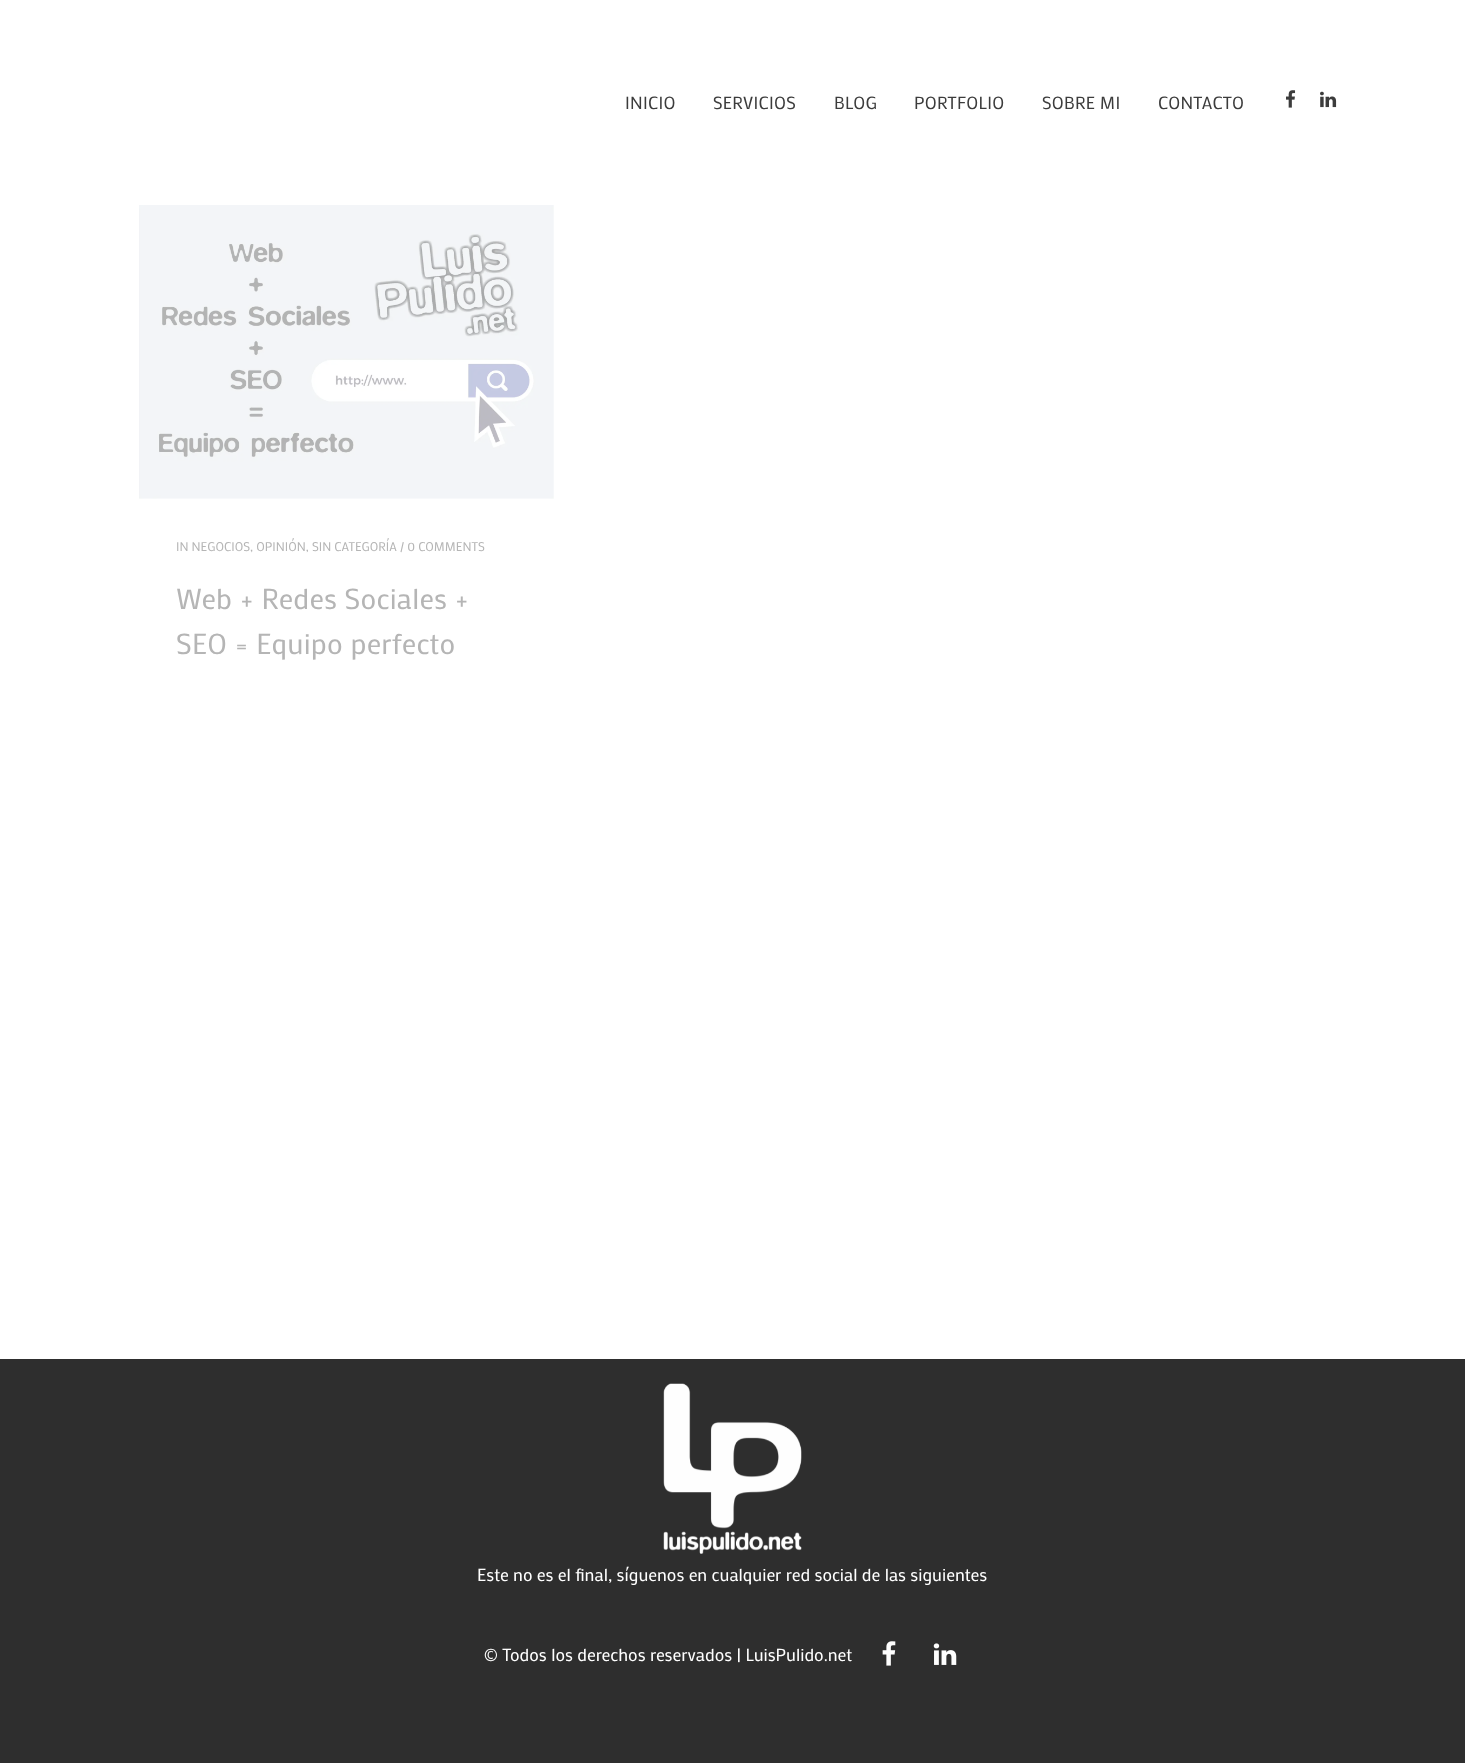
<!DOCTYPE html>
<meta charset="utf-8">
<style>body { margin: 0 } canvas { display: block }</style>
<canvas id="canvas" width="1465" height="1763"></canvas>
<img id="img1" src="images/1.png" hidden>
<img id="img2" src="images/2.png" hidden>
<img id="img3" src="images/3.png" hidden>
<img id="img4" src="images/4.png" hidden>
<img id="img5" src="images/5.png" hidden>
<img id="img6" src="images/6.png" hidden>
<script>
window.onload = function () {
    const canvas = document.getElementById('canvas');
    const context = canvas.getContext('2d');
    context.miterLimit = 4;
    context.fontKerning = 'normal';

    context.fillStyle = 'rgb(255, 255, 255)';
    context.fillRect(0, 0, 1465, 1763);
    context.drawImage(document.getElementById('img1'), 1286, 90, 10, 18);
    context.drawImage(document.getElementById('img2'), 1320, 91, 17, 17);
    context.drawImage(document.getElementById('img3'), 139, 205, 415, 294);
    context.fillStyle = 'rgb(46, 46, 46)';
    context.fillRect(0, 1359, 1465, 404);
    context.drawImage(document.getElementById('img4'), 663, 1383, 139, 171);
    context.drawImage(document.getElementById('img5'), 882, 1641, 14, 25);
    context.drawImage(document.getElementById('img6'), 933, 1643, 24, 22);
    context.letterSpacing = '0.25px';
    context.font = '17.5px Mako';
    context.fillStyle = 'rgb(60, 60, 60)';
    context.fillText('INICIO', 625, 109);
    context.fillText('SERVICIOS', 713, 109);
    context.fillText('BLOG', 834, 109);
    context.fillText('PORTFOLIO', 914, 109);
    context.fillText('SOBRE MI', 1042, 109);
    context.fillText('CONTACTO', 1158, 109);
    context.letterSpacing = '0px';
    context.font = '12.5px Mako';
    context.fillStyle = 'rgb(181, 181, 181)';
    context.fillText('IN NEGOCIOS, OPINIÓN, SIN CATEGORÍA / 0 COMMENTS', 176, 551);
    context.letterSpacing = '0.25px';
    context.font = '28.75px Mako';
    context.fillText('Web + Redes Sociales +', 176, 609);
    context.fillText('SEO = Equipo perfecto', 176, 654);
    context.letterSpacing = '0px';
    context.font = '17.5px Mako';
    context.fillStyle = 'rgb(255, 255, 255)';
    context.fillText('Este no es el final, síguenos en cualquier red social de las siguientes', 477, 1581);
    context.fillText('© Todos los derechos reservados | LuisPulido.net', 484, 1661);
};
</script>
